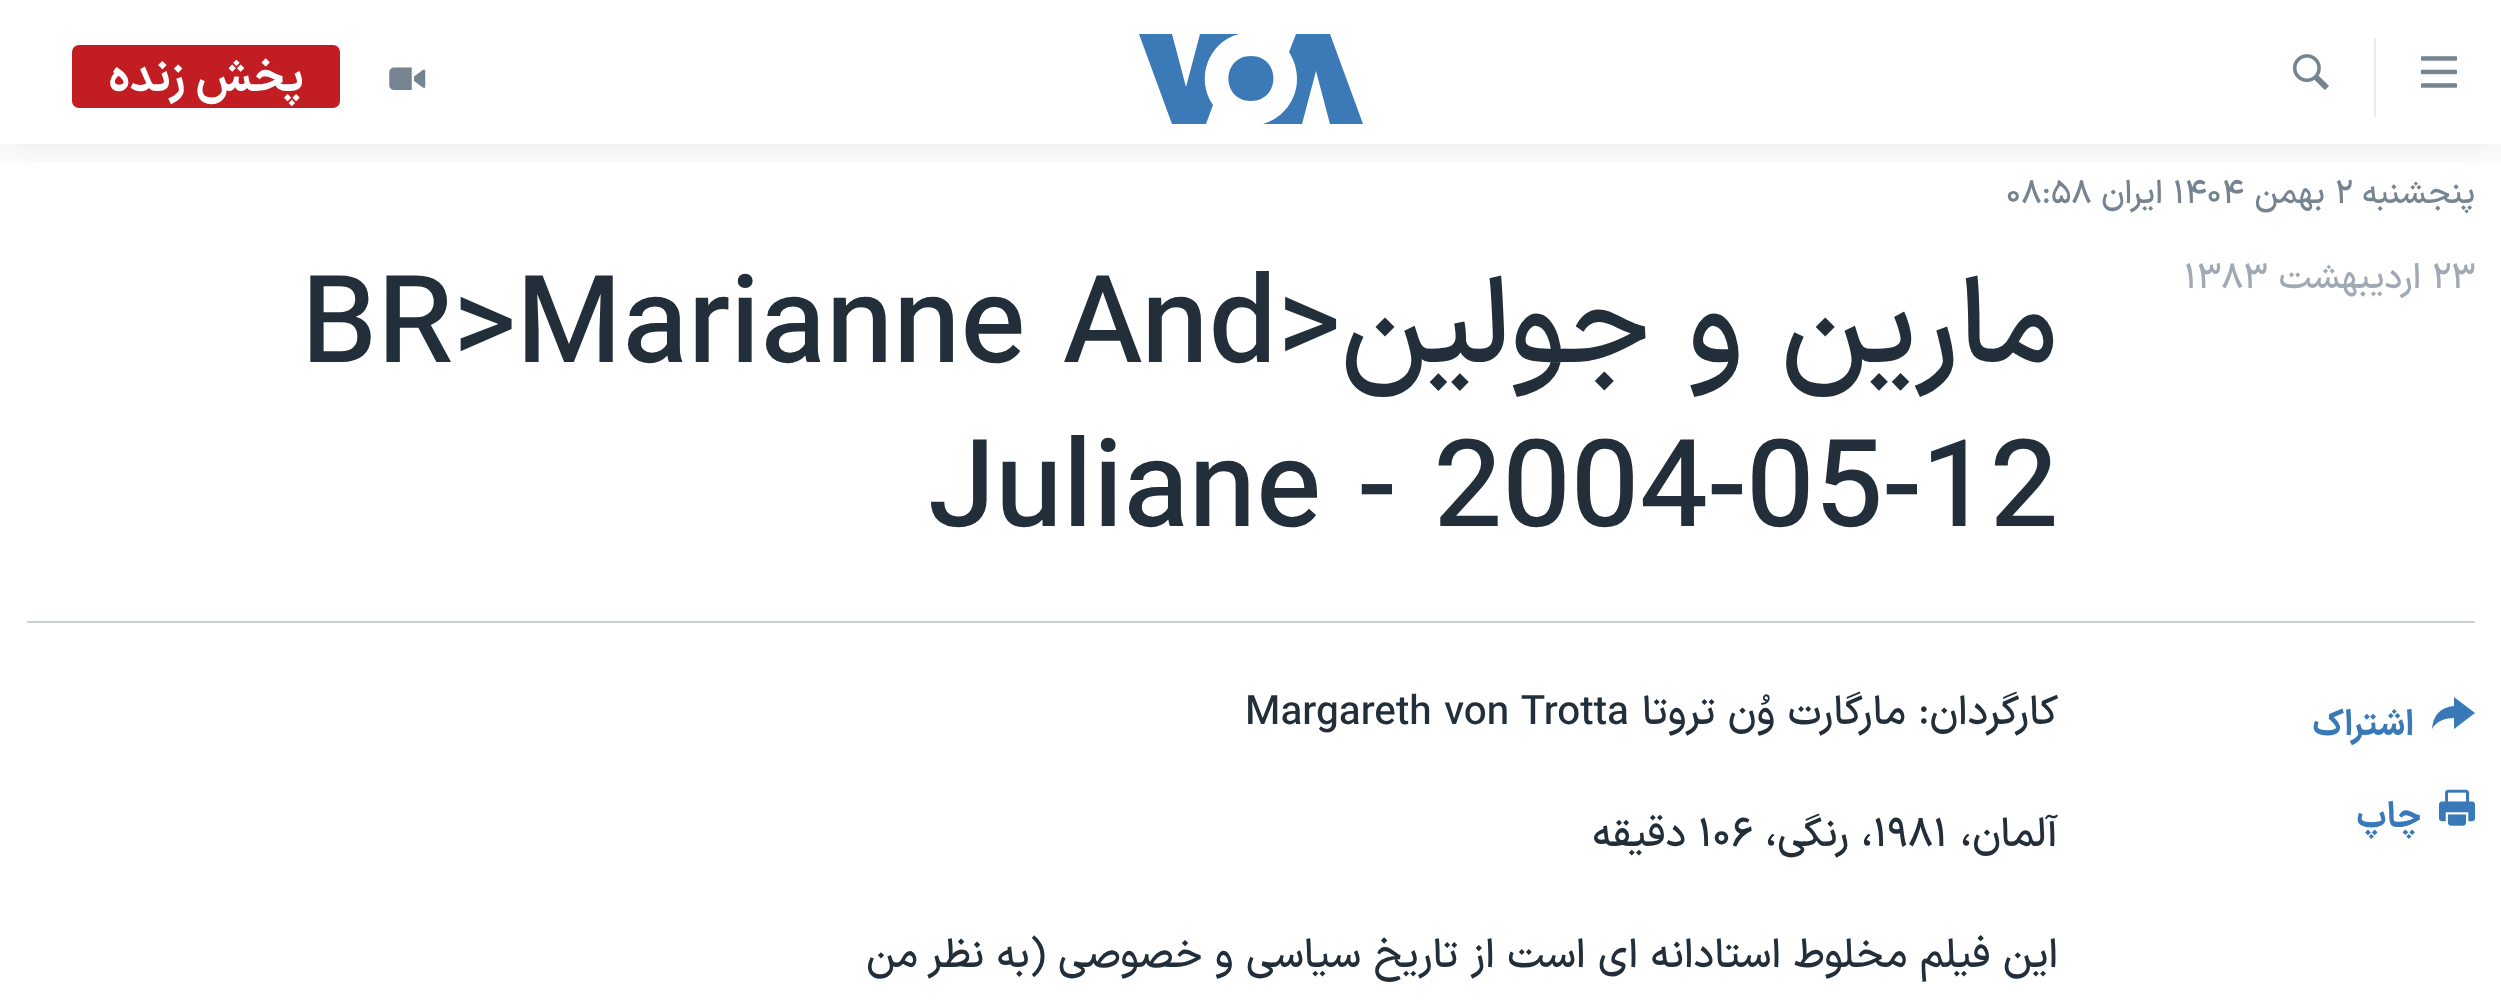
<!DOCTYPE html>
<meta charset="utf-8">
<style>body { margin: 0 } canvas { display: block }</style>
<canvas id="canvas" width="2501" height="1000"></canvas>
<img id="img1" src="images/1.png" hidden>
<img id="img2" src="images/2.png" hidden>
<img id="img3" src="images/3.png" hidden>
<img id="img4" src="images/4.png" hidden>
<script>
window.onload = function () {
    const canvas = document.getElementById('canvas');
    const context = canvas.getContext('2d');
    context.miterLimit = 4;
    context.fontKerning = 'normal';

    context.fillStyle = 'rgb(255, 255, 255)';
    context.fillRect(0, 0, 2501, 1000);
    context.save();
    context.beginPath();
    context.rect(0, 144, 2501, 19);
    context.clip();
    context.fillStyle = 'rgba(0, 0, 0, 0.1)';
    context.filter = 'blur(22.5px)';
    context.beginPath();
    context.rect(0, 0, 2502, 144);
    context.fill();
    context.filter = 'none';
    context.restore();
    context.drawImage(document.getElementById('img1'), 2421, 56, 36, 32);
    context.fillStyle = 'rgb(235, 235, 235)';
    context.fillRect(2374, 38, 2, 79);
    context.drawImage(document.getElementById('img2'), 2292, 54, 37, 36);
    context.fillStyle = 'rgb(59, 121, 183)';
    context.beginPath();
    context.moveTo(1213, 105);
    context.lineTo(1206, 124);
    context.lineTo(1172, 124);
    context.lineTo(1139, 34);
    context.lineTo(1172, 34);
    context.lineTo(1186, 87);
    context.lineTo(1200, 34);
    context.lineTo(1239, 34);
    context.bezierCurveTo(1208, 42, 1195, 79, 1213, 105);
    context.closePath();
    context.moveTo(1251, 56);
    context.bezierCurveTo(1221, 56, 1221, 101, 1251, 101);
    context.bezierCurveTo(1281, 101, 1281, 56, 1251, 56);
    context.closePath();
    context.moveTo(1297, 79);
    context.bezierCurveTo(1297, 100, 1283, 118, 1263, 124);
    context.lineTo(1302, 124);
    context.lineTo(1316, 71);
    context.lineTo(1330, 124);
    context.lineTo(1363, 124);
    context.lineTo(1330, 34);
    context.lineTo(1296, 34);
    context.lineTo(1289, 52);
    context.bezierCurveTo(1294, 60, 1297, 69, 1297, 79);
    context.closePath();
    context.fill();
    context.drawImage(document.getElementById('img3'), 389, 67, 37, 23);
    context.fillStyle = 'rgb(193, 29, 34)';
    context.beginPath();
    context.roundRect(72, 45, 268, 63, 7);
    context.fill();
    context.fillStyle = 'rgb(203, 209, 214)';
    context.fillRect(27, 621, 2448, 2);
    context.fillStyle = 'rgb(58, 121, 183)';
    context.beginPath();
    context.moveTo(2432, 729);
    context.bezierCurveTo(2433, 716, 2440, 707, 2454, 706);
    context.lineTo(2454, 697);
    context.lineTo(2475, 713);
    context.lineTo(2454, 729);
    context.lineTo(2454, 718);
    context.bezierCurveTo(2446, 718, 2436, 721, 2432, 729);
    context.closePath();
    context.fill();
    context.drawImage(document.getElementById('img4'), 2439, 789, 36, 37);
    context.direction = 'rtl';
    context.font = 'bold 45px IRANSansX';
    context.fillStyle = 'rgb(255, 255, 255)';
    context.fillText('پخش زنده', 304, 91);
    context.font = '500 33px IRANSansX';
    context.fillStyle = 'rgb(118, 132, 146)';
    context.fillText('پنجشنبه', 2475, 203);
    context.direction = 'ltr';
    context.fillText('۲', 2335, 203);
    context.direction = 'rtl';
    context.fillText('بهمن', 2325, 203);
    context.direction = 'ltr';
    context.fillText('۱۴۰۴', 2173, 203);
    context.direction = 'rtl';
    context.fillText('ایران', 2163, 203);
    context.direction = 'ltr';
    context.fillText('۰۸:۵۸', 2006, 203);
    context.font = '500 35.5px IRANSansX';
    context.fillStyle = 'rgb(161, 170, 180)';
    context.fillText('۲۳', 2432, 288);
    context.direction = 'rtl';
    context.fillText('اردیبهشت', 2421, 288);
    context.direction = 'ltr';
    context.fillText('۱۳۸۳', 2184, 288);
    context.direction = 'rtl';
    context.font = '500 121.5px IRANSansX';
    context.fillStyle = 'rgb(34, 47, 58)';
    context.fillText('مارين و جولين<', 2058, 362);
    context.direction = 'ltr';
    context.fillText('BR>Marianne And', 301, 362);
    context.fillText('Juliane - 2004-05-12', 928, 526);
    context.direction = 'rtl';
    context.font = 'bold 35.5px IRANSansX';
    context.fillStyle = 'rgb(58, 121, 183)';
    context.fillText('اشتراک', 2414, 735);
    context.fillText('چاپ', 2421, 827);
    context.font = '500 40.5px IRANSansX';
    context.fillStyle = 'rgb(34, 47, 58)';
    context.fillText('کارگردان: مارگارت وُن تروتا', 2058, 724);
    context.direction = 'ltr';
    context.fillText('Margareth von Trotta', 1245, 724);
    context.direction = 'rtl';
    context.fillText('آلمان،', 2058, 846);
    context.direction = 'ltr';
    context.fillText('۱۹۸۱', 1873, 846);
    context.direction = 'rtl';
    context.fillText('، رنگی،', 1873, 846);
    context.direction = 'ltr';
    context.fillText('۱۰۶', 1698, 846);
    context.direction = 'rtl';
    context.fillText('دقيقه', 1686, 846);
    context.fillText('اين فيلم مخلوط استادانه ای است از تاريخ سياسی و خصوصی (به نظر من', 2058, 967);
};
</script>
